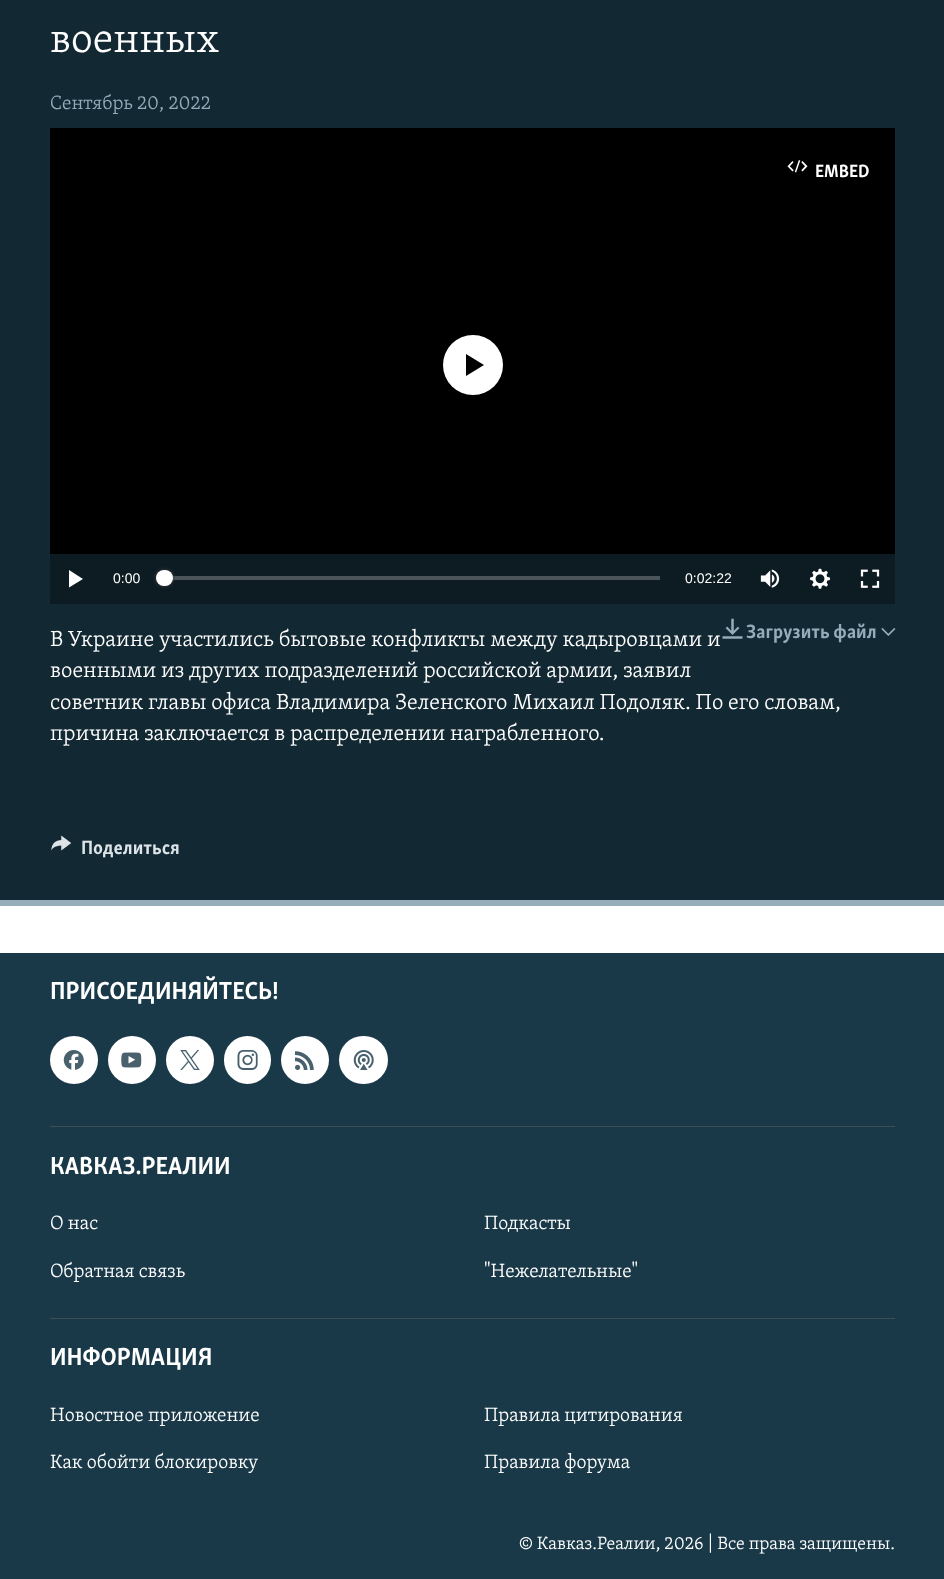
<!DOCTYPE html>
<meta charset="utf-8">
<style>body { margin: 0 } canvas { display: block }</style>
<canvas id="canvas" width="944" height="1579"></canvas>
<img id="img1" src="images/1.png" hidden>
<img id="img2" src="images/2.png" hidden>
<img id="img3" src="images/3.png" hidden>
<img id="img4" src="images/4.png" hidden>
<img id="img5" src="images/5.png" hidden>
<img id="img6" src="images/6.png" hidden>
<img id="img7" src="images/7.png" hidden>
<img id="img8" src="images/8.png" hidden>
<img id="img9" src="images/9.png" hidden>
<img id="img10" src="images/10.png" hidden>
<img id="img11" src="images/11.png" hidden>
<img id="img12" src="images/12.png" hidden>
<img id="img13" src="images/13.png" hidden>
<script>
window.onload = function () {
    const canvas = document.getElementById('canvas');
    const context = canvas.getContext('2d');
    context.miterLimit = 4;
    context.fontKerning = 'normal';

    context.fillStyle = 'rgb(255, 255, 255)';
    context.fillRect(0, 0, 944, 1579);
    context.fillStyle = 'rgb(18, 40, 50)';
    context.fillRect(0, 0, 944, 900);
    context.fillStyle = 'rgb(149, 173, 185)';
    context.fillRect(0, 900, 944, 6);
    context.fillStyle = 'rgb(0, 0, 0)';
    context.fillRect(50, 128, 845, 426);
    context.drawImage(document.getElementById('img1'), 787, 160, 21, 13);
    context.fillStyle = 'rgb(255, 255, 255)';
    context.beginPath();
    context.arc(473, 365, 30, 0, 2 * Math.PI);
    context.fill();
    context.fillStyle = 'rgb(0, 0, 0)';
    context.beginPath();
    context.moveTo(466, 376);
    context.lineTo(484, 365);
    context.lineTo(466, 354);
    context.closePath();
    context.fill();
    context.fillStyle = 'rgb(13, 27, 34)';
    context.fillRect(50, 554, 845, 50);
    context.fillStyle = 'rgb(255, 255, 255)';
    context.beginPath();
    context.moveTo(69, 587.5);
    context.lineTo(83, 579);
    context.lineTo(69, 570);
    context.closePath();
    context.fill();
    context.fillStyle = 'rgb(74, 84, 89)';
    context.fillRect(164, 576, 496, 4);
    context.fillStyle = 'rgb(65, 65, 68)';
    context.filter = 'blur(2px)';
    context.beginPath();
    context.roundRect(156, 570, 17, 16, 8);
    context.fill();
    context.filter = 'none';
    context.fillStyle = 'rgb(255, 255, 255)';
    context.beginPath();
    context.roundRect(156, 570, 17, 16, 8);
    context.fill();
    context.drawImage(document.getElementById('img2'), 760, 569, 20, 19);
    context.drawImage(document.getElementById('img3'), 810, 568, 20, 21);
    context.drawImage(document.getElementById('img4'), 860, 569, 20, 19);
    context.drawImage(document.getElementById('img5'), 722, 618, 21, 21);
    context.drawImage(document.getElementById('img6'), 881, 627, 15, 9);
    context.drawImage(document.getElementById('img7'), 51, 835, 21, 16);
    context.fillStyle = 'rgb(26, 57, 72)';
    context.fillRect(0, 953, 944, 626);
    context.fillStyle = 'rgb(255, 255, 255)';
    context.beginPath();
    context.arc(74, 1060, 24, 0, 2 * Math.PI);
    context.fill();
    context.drawImage(document.getElementById('img8'), 63, 1050, 21, 20);
    context.beginPath();
    context.arc(132, 1060, 24, 0, 2 * Math.PI);
    context.fill();
    context.drawImage(document.getElementById('img9'), 121, 1052, 21, 16);
    context.beginPath();
    context.arc(190, 1060, 24, 0, 2 * Math.PI);
    context.fill();
    context.drawImage(document.getElementById('img10'), 180, 1050, 20, 20);
    context.beginPath();
    context.roundRect(224, 1036, 47, 48, 23.5);
    context.fill();
    context.drawImage(document.getElementById('img11'), 237, 1050, 21, 20);
    context.beginPath();
    context.arc(305, 1060, 24, 0, 2 * Math.PI);
    context.fill();
    context.drawImage(document.getElementById('img12'), 295, 1051, 19, 19);
    context.beginPath();
    context.roundRect(339, 1036, 49, 48, 24);
    context.fill();
    context.drawImage(document.getElementById('img13'), 353, 1050, 21, 20);
    context.fillStyle = 'rgb(62, 79, 87)';
    context.fillRect(50, 1126, 845, 1);
    context.fillRect(50, 1318, 845, 1);
    context.font = '300 43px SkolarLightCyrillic';
    context.fillStyle = 'rgb(255, 255, 255)';
    context.fillText('военных', 50, 52);
    context.font = '300 19.75px SkolarLightCyrillic';
    context.fillStyle = 'rgb(149, 173, 185)';
    context.fillText('Сентябрь 20, 2022', 50, 109);
    context.font = 'bold 18.25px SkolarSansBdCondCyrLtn';
    context.fillStyle = 'rgb(255, 255, 255)';
    context.fillText('EMBED', 815, 177);
    context.font = '14px Liberation Sans';
    context.fillText('0:00', 113, 583);
    context.fillText('0:02:22', 685, 583);
    context.font = 'bold 19.75px SkolarSansBdCondCyrLtn';
    context.fillStyle = 'rgb(149, 173, 185)';
    context.fillText('Загрузить файл', 746, 638);
    context.font = '300 22.5px SkolarLightCyrillic';
    context.fillStyle = 'rgb(255, 255, 255)';
    context.fillText('В Украине участились бытовые конфликты между кадыровцами и', 50, 646);
    context.fillText('военными из других подразделений российской армии, заявил', 50, 677);
    context.fillText('советник главы офиса Владимира Зеленского Михаил Подоляк. По его словам,', 50, 709);
    context.fillText('причина заключается в распределении награбленного.', 50, 740);
    context.font = 'bold 19.75px SkolarSansBdCondCyrLtn';
    context.fillStyle = 'rgb(220, 228, 232)';
    context.fillText('Поделиться', 81, 854);
    context.font = 'bold 25.25px SkolarSansBdCondCyrLtn';
    context.fillStyle = 'rgb(255, 255, 255)';
    context.fillText('ПРИСОЕДИНЯЙТЕСЬ!', 50, 999);
    context.fillText('КАВКАЗ.РЕАЛИИ', 50, 1174);
    context.font = '300 19.75px SkolarLightCyrillic';
    context.fillText('О нас', 50, 1229);
    context.fillText('Подкасты', 484, 1229);
    context.fillText('Обратная связь', 50, 1277);
    context.fillText('"Нежелательные"', 484, 1277);
    context.font = 'bold 25.25px SkolarSansBdCondCyrLtn';
    context.fillText('ИНФОРМАЦИЯ', 50, 1365);
    context.font = '300 19.75px SkolarLightCyrillic';
    context.fillText('Новостное приложение', 50, 1421);
    context.fillText('Правила цитирования', 484, 1421);
    context.fillText('Как обойти блокировку', 50, 1468);
    context.fillText('Правила форума', 484, 1468);
    context.font = '300 18.25px SkolarLightCyrillic';
    context.fillText('© Кавказ.Реалии, 2026 | Все права защищены.', 519, 1549);
};
</script>
